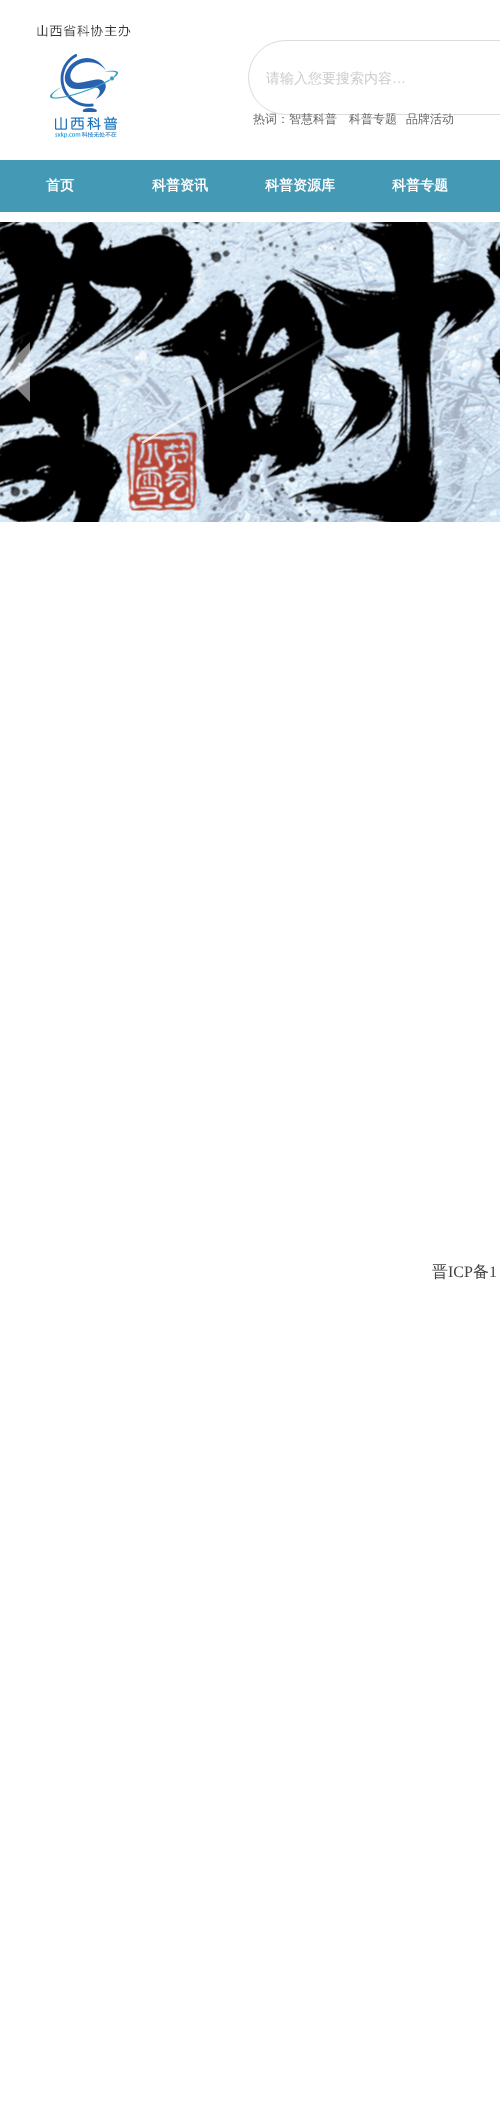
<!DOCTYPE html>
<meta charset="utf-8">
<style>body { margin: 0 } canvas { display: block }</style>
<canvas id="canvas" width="500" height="2121"></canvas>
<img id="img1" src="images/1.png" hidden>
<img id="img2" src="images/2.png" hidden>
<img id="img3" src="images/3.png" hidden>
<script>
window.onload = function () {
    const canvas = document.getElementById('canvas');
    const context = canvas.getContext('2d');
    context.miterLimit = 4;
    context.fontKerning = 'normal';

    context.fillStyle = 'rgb(255, 255, 255)';
    context.fillRect(0, 0, 500, 2121);
    context.drawImage(document.getElementById('img1'), 37, 24, 94, 114);
    context.beginPath();
    context.roundRect(248.5, 40.5, 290, 74, 37);
    context.strokeStyle = 'rgb(219, 219, 219)';
    context.stroke();
    context.fillStyle = 'rgb(68, 153, 181)';
    context.fillRect(0, 160, 500, 52);
    context.drawImage(document.getElementById('img2'), 0, 222, 500, 300);
    context.drawImage(document.getElementById('img3'), 0, 332, 500, 190);
    context.fillStyle = 'rgba(255, 255, 255, 0.5)';
    context.beginPath();
    context.moveTo(30, 342);
    context.lineTo(30, 402);
    context.lineTo(0, 372);
    context.closePath();
    context.fill();
    context.font = '500 14px WenQuanYi Zen Hei';
    context.fillStyle = 'rgb(204, 204, 204)';
    context.fillText('请输入您要搜索内容', 266, 83);
    context.font = '14px Liberation Sans';
    context.fillText('…', 392, 83);
    context.font = '500 12px WenQuanYi Zen Hei';
    context.fillStyle = 'rgb(102, 102, 102)';
    context.fillText('热词：智慧科普', 253, 123);
    context.fillText('科普专题', 349, 123);
    context.fillText('品牌活动', 406, 123);
    context.font = 'bold 14px WenQuanYi Zen Hei';
    context.fillStyle = 'rgb(255, 255, 255)';
    context.fillText('首页', 46, 190);
    context.fillText('科普资讯', 152, 190);
    context.fillText('科普资源库', 265, 190);
    context.fillText('科普专题', 392, 190);
    context.font = '500 16px WenQuanYi Zen Hei';
    context.fillStyle = 'rgb(68, 68, 68)';
    context.fillText('晋', 432, 1277);
    context.font = '16px Liberation Serif';
    context.fillText('ICP', 448, 1277);
    context.font = '500 16px WenQuanYi Zen Hei';
    context.fillText('备', 473, 1277);
    context.font = '16px Liberation Serif';
    context.fillText('1', 489, 1277);
};
</script>
